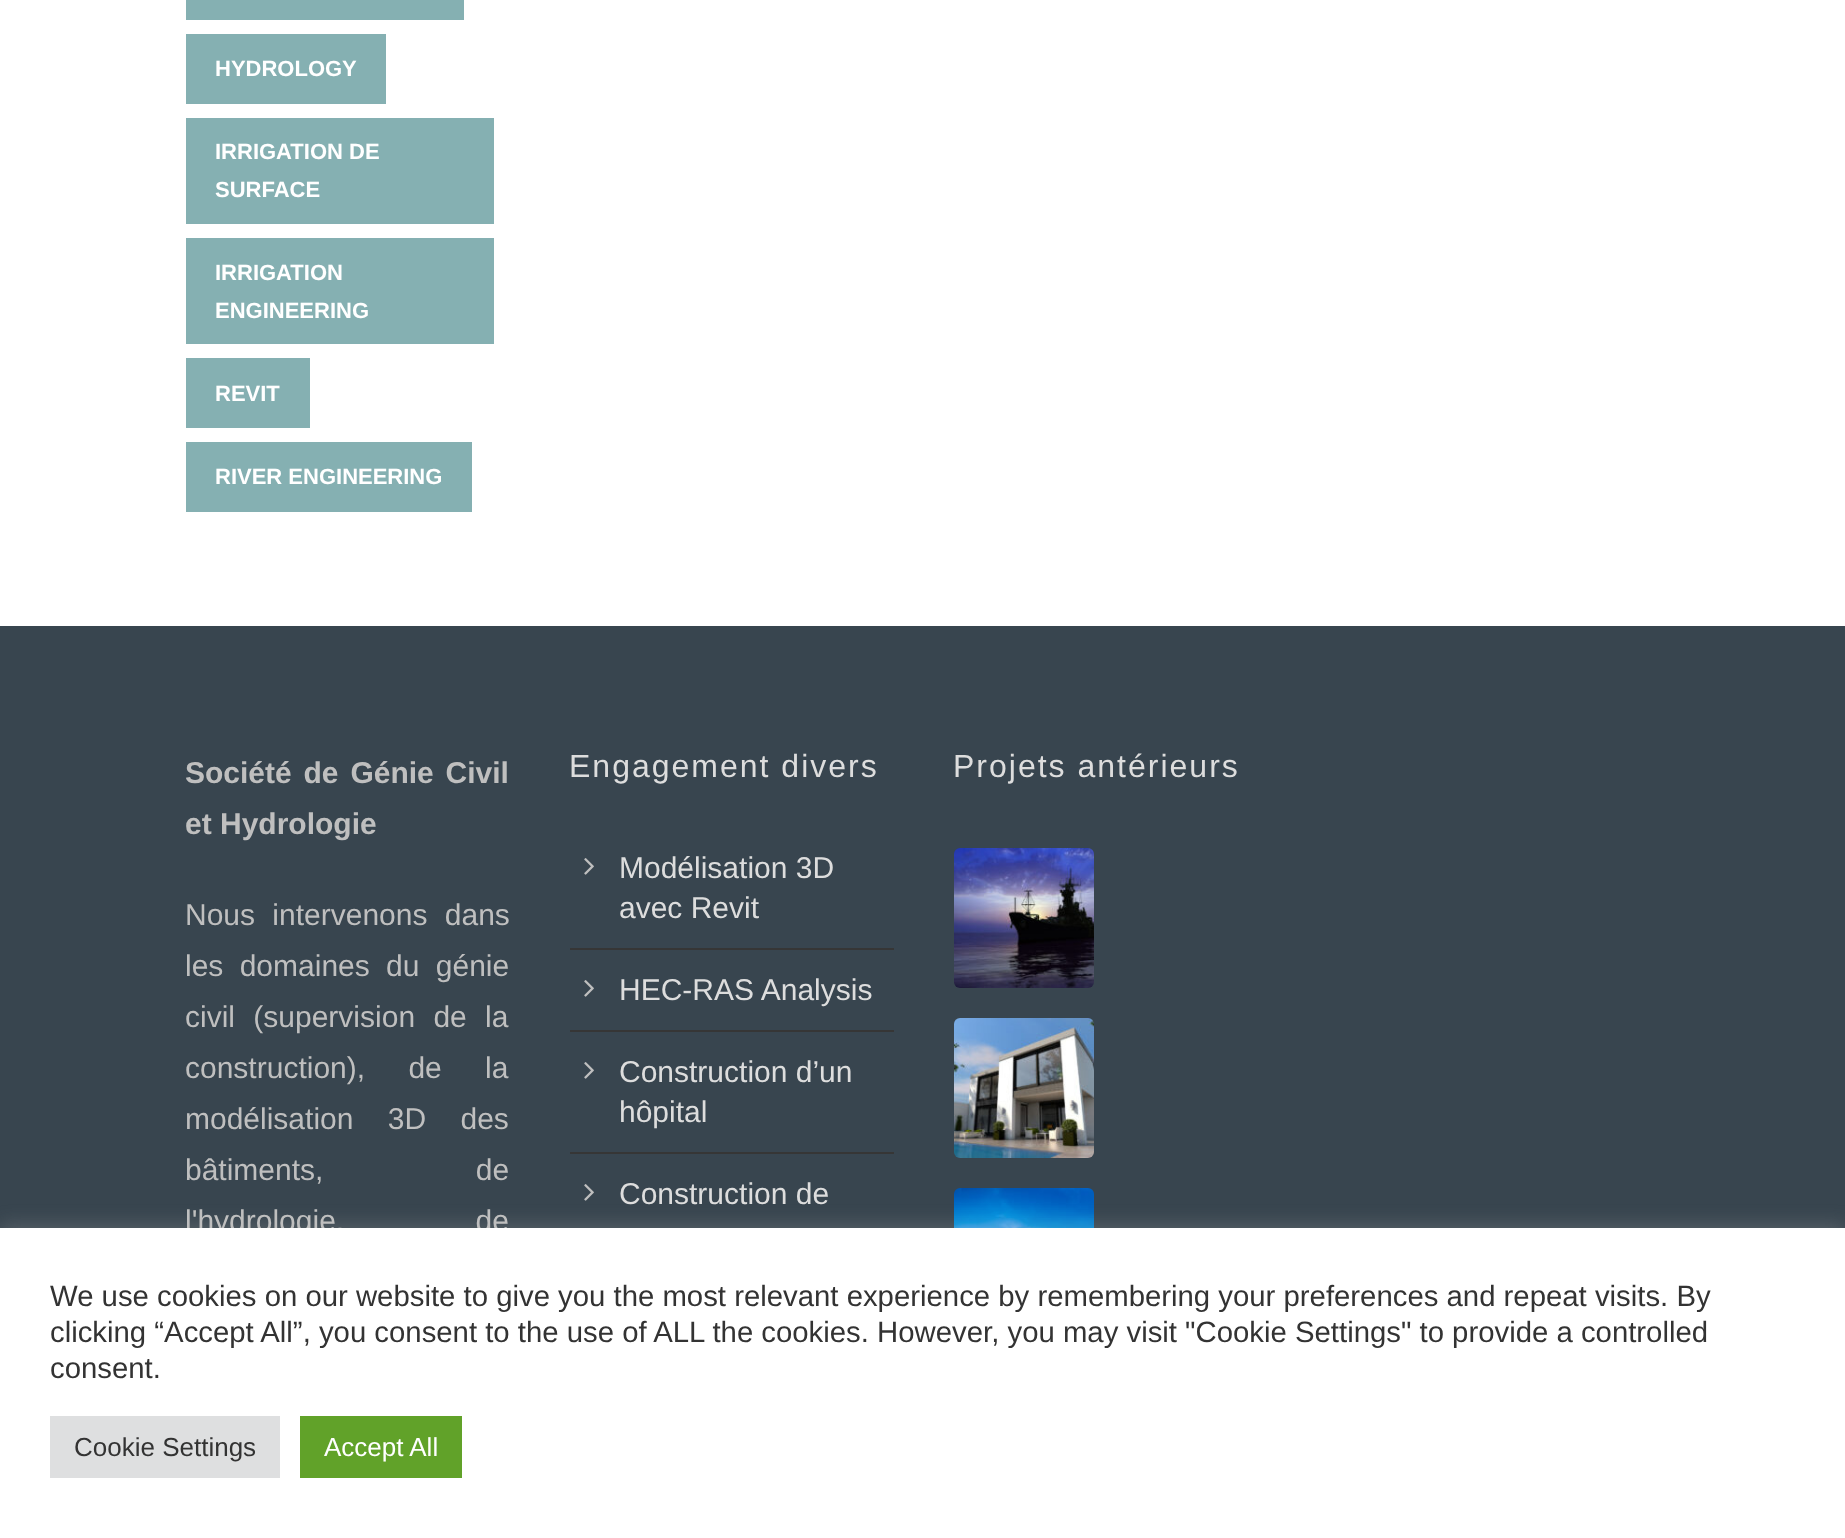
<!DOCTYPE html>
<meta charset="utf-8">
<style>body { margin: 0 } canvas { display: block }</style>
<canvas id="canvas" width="1845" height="1538"></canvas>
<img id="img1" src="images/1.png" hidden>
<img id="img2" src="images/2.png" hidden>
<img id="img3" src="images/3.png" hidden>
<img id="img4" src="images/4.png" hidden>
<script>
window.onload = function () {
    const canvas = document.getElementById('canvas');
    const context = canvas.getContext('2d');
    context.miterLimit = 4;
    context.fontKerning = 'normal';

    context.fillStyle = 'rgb(255, 255, 255)';
    context.fillRect(0, 0, 1845, 1538);
    context.fillStyle = 'rgb(133, 176, 178)';
    context.fillRect(186, 0, 278, 20);
    context.fillRect(186, 34, 200, 70);
    context.fillRect(186, 118, 308, 106);
    context.fillRect(186, 238, 308, 106);
    context.fillRect(186, 358, 124, 70);
    context.fillRect(186, 442, 286, 70);
    context.fillStyle = 'rgb(56, 69, 79)';
    context.fillRect(0, 626, 1845, 602);
    context.fillStyle = 'rgb(54, 54, 54)';
    context.fillRect(570, 948, 324, 2);
    context.drawImage(document.getElementById('img1'), 584, 858, 10, 17);
    context.fillRect(570, 1030, 324, 2);
    context.drawImage(document.getElementById('img1'), 584, 980, 10, 17);
    context.fillRect(570, 1152, 324, 2);
    context.drawImage(document.getElementById('img1'), 584, 1062, 10, 17);
    context.drawImage(document.getElementById('img1'), 584, 1184, 10, 17);
    context.drawImage(document.getElementById('img2'), 954, 848, 140, 140);
    context.drawImage(document.getElementById('img3'), 954, 1018, 140, 140);
    context.drawImage(document.getElementById('img4'), 954, 1188, 140, 40);
    context.fillStyle = 'rgba(172, 171, 171, 0.3)';
    context.filter = 'blur(10px)';
    context.beginPath();
    context.rect(0, 1226, 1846, 310);
    context.fill();
    context.filter = 'none';
    context.font = 'bold 22px Liberation Sans';
    context.fillStyle = 'rgb(255, 255, 255)';
    context.fillText('HYDROLOGY', 215, 76);
    context.fillText('IRRIGATION DE', 215, 159);
    context.fillText('SURFACE', 215, 197);
    context.fillText('IRRIGATION', 215, 280);
    context.fillText('ENGINEERING', 215, 318);
    context.fillText('REVIT', 215, 401);
    context.fillText('RIVER ENGINEERING', 215, 484);
    context.wordSpacing = '3.5px';
    context.font = 'bold 30px Liberation Sans';
    context.fillStyle = 'rgb(191, 191, 191)';
    context.fillText('Société de Génie Civil', 185, 783);
    context.wordSpacing = '0px';
    context.fillText('et Hydrologie', 185, 834);
    context.wordSpacing = '9px';
    context.font = '30px Liberation Sans';
    context.fillText('Nous intervenons dans', 185, 925);
    context.wordSpacing = '8px';
    context.fillText('les domaines du génie', 185, 976);
    context.wordSpacing = '10px';
    context.fillText('civil (supervision de la', 185, 1027);
    context.wordSpacing = '35px';
    context.fillText('construction), de la', 185, 1078);
    context.wordSpacing = '26px';
    context.fillText('modélisation 3D des', 185, 1129);
    context.wordSpacing = '144px';
    context.fillText('bâtiments, de', 185, 1180);
    context.wordSpacing = '123px';
    context.fillText('l\'hydrologie, de', 185, 1231);
    context.letterSpacing = '2px';
    context.wordSpacing = '0px';
    context.font = '32px Liberation Sans';
    context.fillStyle = 'rgb(221, 221, 221)';
    context.fillText('Engagement divers', 569, 777);
    context.letterSpacing = '0px';
    context.font = '30px Liberation Sans';
    context.fillText('Modélisation 3D', 619, 878);
    context.fillText('avec Revit', 619, 918);
    context.fillText('HEC-RAS Analysis', 619, 1000);
    context.fillText('Construction d’un', 619, 1082);
    context.fillText('hôpital', 619, 1122);
    context.fillText('Construction de', 619, 1204);
    context.letterSpacing = '2px';
    context.font = '32px Liberation Sans';
    context.fillText('Projets antérieurs', 953, 777);
    context.fillStyle = 'rgb(255, 255, 255)';
    context.fillRect(0, 1228, 1845, 310);
    context.letterSpacing = '0px';
    context.font = '29.33px Liberation Sans';
    context.fillStyle = 'rgb(51, 51, 51)';
    context.fillText('We use cookies on our website to give you the most relevant experience by remembering your preferences and repeat visits. By', 50, 1306);
    context.fillText('clicking “Accept All”, you consent to the use of ALL the cookies. However, you may visit "Cookie Settings" to provide a controlled', 50, 1342);
    context.fillText('consent.', 50, 1378);
    context.fillStyle = 'rgb(222, 223, 224)';
    context.fillRect(50, 1416, 230, 62);
    context.font = '26px Liberation Sans';
    context.fillStyle = 'rgb(51, 51, 51)';
    context.fillText('Cookie Settings', 74, 1456);
    context.fillStyle = 'rgb(97, 162, 41)';
    context.fillRect(300, 1416, 162, 62);
    context.fillStyle = 'rgb(255, 255, 255)';
    context.fillText('Accept All', 324, 1456);
};
</script>
